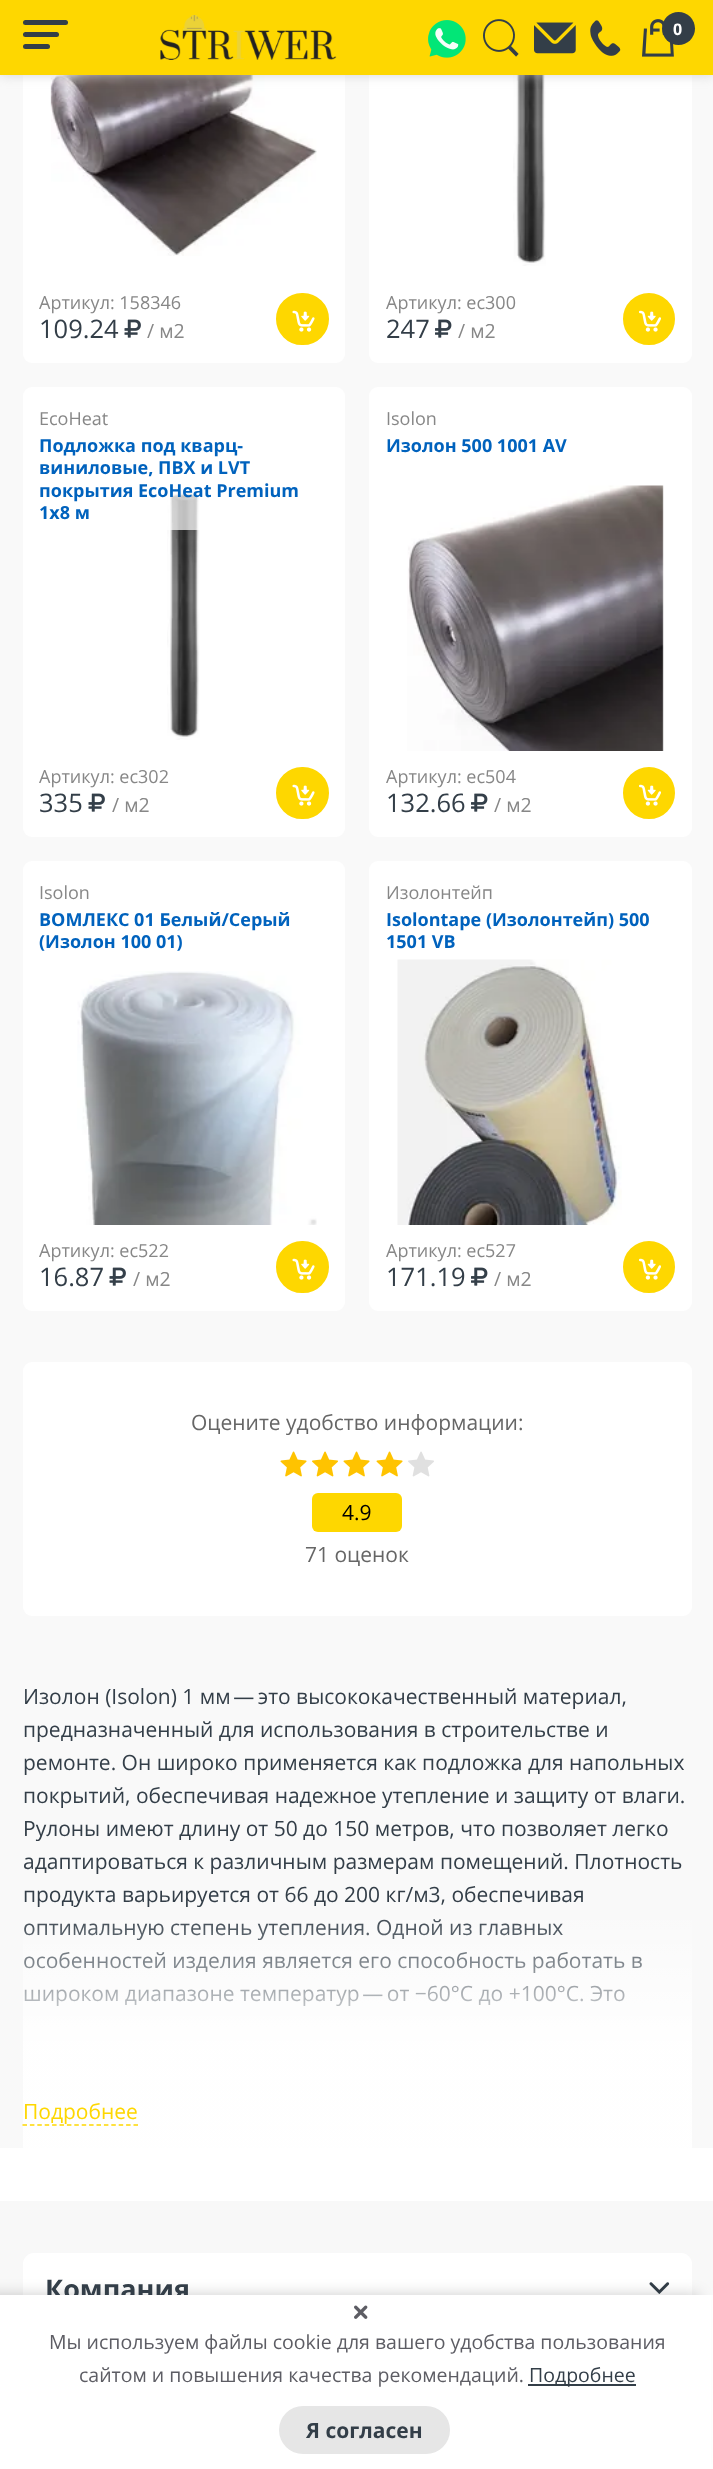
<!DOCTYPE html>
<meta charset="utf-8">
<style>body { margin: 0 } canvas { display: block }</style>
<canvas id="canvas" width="713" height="2469"></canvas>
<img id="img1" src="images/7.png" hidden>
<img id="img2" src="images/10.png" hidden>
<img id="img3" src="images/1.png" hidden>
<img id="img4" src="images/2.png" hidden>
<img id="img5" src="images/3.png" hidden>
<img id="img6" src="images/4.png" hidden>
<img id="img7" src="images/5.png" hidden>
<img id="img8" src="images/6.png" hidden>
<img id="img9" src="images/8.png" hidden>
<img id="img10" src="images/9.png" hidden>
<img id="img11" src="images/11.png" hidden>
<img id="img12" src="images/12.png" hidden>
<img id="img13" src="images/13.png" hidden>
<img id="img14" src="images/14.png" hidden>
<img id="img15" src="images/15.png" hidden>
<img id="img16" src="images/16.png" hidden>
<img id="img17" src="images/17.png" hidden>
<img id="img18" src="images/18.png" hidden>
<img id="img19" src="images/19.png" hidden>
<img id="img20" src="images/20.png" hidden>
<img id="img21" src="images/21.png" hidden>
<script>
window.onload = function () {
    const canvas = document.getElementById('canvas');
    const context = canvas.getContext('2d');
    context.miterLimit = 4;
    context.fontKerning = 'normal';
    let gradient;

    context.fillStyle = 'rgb(255, 255, 255)';
    context.fillRect(0, 0, 713, 2469);
    context.fillStyle = 'rgb(249, 249, 249)';
    context.fillRect(0, 75, 713, 2073);
    context.fillStyle = 'rgb(255, 255, 255)';
    context.beginPath();
    context.roundRect(23, -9, 322, 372, 9);
    context.fill();
    context.drawImage(document.getElementById('img1'), 50, 75, 267, 181);
    context.beginPath();
    context.roundRect(369, -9, 323, 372, 9);
    context.fill();
    context.drawImage(document.getElementById('img2'), 513, 75, 33, 191);
    context.fillStyle = 'rgba(201, 201, 201, 0.75)';
    context.filter = 'blur(6px)';
    context.beginPath();
    context.rect(0, 0, 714, 75);
    context.fill();
    context.filter = 'none';
    context.fillStyle = 'rgb(254, 215, 0)';
    context.fillRect(0, 0, 713, 75);
    context.fillStyle = 'rgb(51, 62, 72)';
    context.beginPath();
    context.roundRect(23, 20, 45, 5, 2.5);
    context.fill();
    context.beginPath();
    context.roundRect(23, 32, 36, 5, 2.5);
    context.fill();
    context.beginPath();
    context.roundRect(23, 44, 27, 5, 2.5);
    context.fill();
    context.drawImage(document.getElementById('img3'), 160, 15, 177, 45);
    context.drawImage(document.getElementById('img4'), 428, 20, 38, 38);
    context.drawImage(document.getElementById('img5'), 483, 19, 36, 38);
    context.drawImage(document.getElementById('img6'), 534, 22, 42, 32);
    context.drawImage(document.getElementById('img7'), 590, 20, 31, 36);
    context.drawImage(document.getElementById('img8'), 642, 19, 32, 38);
    context.beginPath();
    context.arc(678.5, 28.5, 16.5, 0, 2 * Math.PI);
    context.fill();
    context.drawImage(document.getElementById('img9'), 124, 319, 17, 19);
    context.fillStyle = 'rgb(254, 215, 0)';
    context.beginPath();
    context.roundRect(277, 294, 51, 50, 25);
    context.fill();
    context.strokeStyle = 'rgb(254, 215, 0)';
    context.lineWidth = 2;
    context.stroke();
    context.drawImage(document.getElementById('img10'), 292, 310, 23, 22);
    context.drawImage(document.getElementById('img11'), 435, 319, 17, 19);
    context.beginPath();
    context.arc(649, 319, 25, 0, 2 * Math.PI);
    context.fill();
    context.stroke();
    context.drawImage(document.getElementById('img12'), 639, 310, 22, 22);
    context.fillStyle = 'rgb(255, 255, 255)';
    context.beginPath();
    context.roundRect(23, 387, 322, 450, 9);
    context.fill();
    context.drawImage(document.getElementById('img13'), 167, 491, 33, 249);
    context.fillStyle = 'rgba(255, 255, 255, 0.7)';
    context.fillRect(167, 491, 33, 39);
    context.drawImage(document.getElementById('img9'), 88, 793, 17, 19);
    context.fillStyle = 'rgb(254, 215, 0)';
    context.beginPath();
    context.roundRect(277, 768, 51, 50, 25);
    context.fill();
    context.stroke();
    context.drawImage(document.getElementById('img10'), 292, 784, 23, 22);
    context.fillStyle = 'rgb(255, 255, 255)';
    context.beginPath();
    context.roundRect(369, 387, 323, 450, 9);
    context.fill();
    context.drawImage(document.getElementById('img14'), 407, 485, 257, 266);
    context.drawImage(document.getElementById('img11'), 471, 793, 17, 19);
    context.fillStyle = 'rgb(254, 215, 0)';
    context.beginPath();
    context.arc(649, 793, 25, 0, 2 * Math.PI);
    context.fill();
    context.stroke();
    context.drawImage(document.getElementById('img12'), 639, 784, 22, 22);
    context.fillStyle = 'rgb(255, 255, 255)';
    context.beginPath();
    context.roundRect(23, 861, 322, 450, 9);
    context.fill();
    context.drawImage(document.getElementById('img15'), 77, 971, 240, 254);
    context.drawImage(document.getElementById('img9'), 109, 1267, 17, 19);
    context.fillStyle = 'rgb(254, 215, 0)';
    context.beginPath();
    context.roundRect(277, 1242, 51, 50, 25);
    context.fill();
    context.stroke();
    context.drawImage(document.getElementById('img10'), 292, 1258, 23, 22);
    context.fillStyle = 'rgb(255, 255, 255)';
    context.beginPath();
    context.roundRect(369, 861, 323, 450, 9);
    context.fill();
    context.drawImage(document.getElementById('img16'), 397, 959, 225, 266);
    context.drawImage(document.getElementById('img11'), 471, 1267, 17, 19);
    context.fillStyle = 'rgb(254, 215, 0)';
    context.beginPath();
    context.arc(649, 1267, 25, 0, 2 * Math.PI);
    context.fill();
    context.stroke();
    context.drawImage(document.getElementById('img12'), 639, 1258, 22, 22);
    context.fillStyle = 'rgb(255, 255, 255)';
    context.beginPath();
    context.roundRect(23, 1362, 669, 254, 9);
    context.fill();
    context.drawImage(document.getElementById('img17'), 280, 1451, 27, 26);
    context.drawImage(document.getElementById('img18'), 312, 1451, 26, 26);
    context.drawImage(document.getElementById('img17'), 343, 1451, 27, 26);
    context.drawImage(document.getElementById('img17'), 376, 1451, 27, 26);
    context.drawImage(document.getElementById('img19'), 408, 1451, 26, 26);
    context.fillStyle = 'rgb(254, 215, 0)';
    context.beginPath();
    context.roundRect(312, 1493, 90, 39, 6);
    context.fill();
    context.fillStyle = 'rgb(248, 248, 248)';
    context.fillRect(0, 2201, 713, 94);
    context.fillStyle = 'rgb(255, 255, 255)';
    context.beginPath();
    context.roundRect(23, 2253, 669, 74, 11);
    context.fill();
    context.drawImage(document.getElementById('img20'), 649, 2282, 21, 12);
    context.fillStyle = 'rgba(0, 0, 0, 0.2)';
    context.filter = 'blur(7.5px)';
    context.beginPath();
    context.rect(-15, 2295, 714, 174);
    context.fill();
    context.filter = 'none';
    context.font = 'bold 16px Open Sans';
    context.fillStyle = 'rgb(255, 255, 255)';
    context.fillText('0', 673, 35);
    context.font = '18px Open Sans';
    context.fillStyle = 'rgb(135, 135, 135)';
    context.fillText('Артикул: 158346', 39, 309);
    context.font = '25.5px Open Sans';
    context.fillStyle = 'rgb(51, 62, 72)';
    context.fillText('109.24', 39, 338);
    context.font = '19.5px Open Sans';
    context.fillStyle = 'rgb(135, 135, 135)';
    context.fillText('/ м2', 147, 338);
    context.font = '18px Open Sans';
    context.fillText('Артикул: ec300', 386, 309);
    context.font = '25.5px Open Sans';
    context.fillStyle = 'rgb(51, 62, 72)';
    context.fillText('247', 386, 338);
    context.font = '19.5px Open Sans';
    context.fillStyle = 'rgb(135, 135, 135)';
    context.fillText('/ м2', 458, 338);
    context.font = '18px Open Sans';
    context.fillText('EcoHeat', 39, 425);
    context.font = 'bold 18px Open Sans';
    context.fillStyle = 'rgb(0, 98, 189)';
    context.fillText('Подложка под кварц-', 39, 452);
    context.fillText('виниловые, ПВХ и LVT', 39, 474);
    context.fillText('покрытия EcoHeat Premium', 39, 497);
    context.fillText('1x8 м', 39, 519);
    context.font = '18px Open Sans';
    context.fillStyle = 'rgb(135, 135, 135)';
    context.fillText('Артикул: ec302', 39, 783);
    context.font = '25.5px Open Sans';
    context.fillStyle = 'rgb(51, 62, 72)';
    context.fillText('335', 39, 812);
    context.font = '19.5px Open Sans';
    context.fillStyle = 'rgb(135, 135, 135)';
    context.fillText('/ м2', 112, 812);
    context.font = '18px Open Sans';
    context.fillText('Isolon', 386, 425);
    context.font = 'bold 18px Open Sans';
    context.fillStyle = 'rgb(0, 98, 189)';
    context.fillText('Изолон 500 1001 AV', 386, 452);
    context.font = '18px Open Sans';
    context.fillStyle = 'rgb(135, 135, 135)';
    context.fillText('Артикул: ec504', 386, 783);
    context.font = '25.5px Open Sans';
    context.fillStyle = 'rgb(51, 62, 72)';
    context.fillText('132.66', 386, 812);
    context.font = '19.5px Open Sans';
    context.fillStyle = 'rgb(135, 135, 135)';
    context.fillText('/ м2', 494, 812);
    context.font = '18px Open Sans';
    context.fillText('Isolon', 39, 899);
    context.font = 'bold 18px Open Sans';
    context.fillStyle = 'rgb(0, 98, 189)';
    context.fillText('ВОМЛЕКС 01 Белый/Серый', 39, 926);
    context.fillText('(Изолон 100 01)', 39, 948);
    context.font = '18px Open Sans';
    context.fillStyle = 'rgb(135, 135, 135)';
    context.fillText('Артикул: ec522', 39, 1257);
    context.font = '25.5px Open Sans';
    context.fillStyle = 'rgb(51, 62, 72)';
    context.fillText('16.87', 39, 1286);
    context.font = '19.5px Open Sans';
    context.fillStyle = 'rgb(135, 135, 135)';
    context.fillText('/ м2', 133, 1286);
    context.font = '18px Open Sans';
    context.fillText('Изолонтейп', 386, 899);
    context.font = 'bold 18px Open Sans';
    context.fillStyle = 'rgb(0, 98, 189)';
    context.fillText('Isolontape (Изолонтейп) 500', 386, 926);
    context.fillText('1501 VB', 386, 948);
    context.font = '18px Open Sans';
    context.fillStyle = 'rgb(135, 135, 135)';
    context.fillText('Артикул: ec527', 386, 1257);
    context.font = '25.5px Open Sans';
    context.fillStyle = 'rgb(51, 62, 72)';
    context.fillText('171.19', 386, 1286);
    context.font = '19.5px Open Sans';
    context.fillStyle = 'rgb(135, 135, 135)';
    context.fillText('/ м2', 494, 1286);
    context.font = '21px Open Sans';
    context.fillStyle = 'rgb(102, 102, 102)';
    context.fillText('Оцените удобство информации:', 191, 1430);
    context.fillStyle = 'rgb(0, 0, 0)';
    context.fillText('4.9', 342, 1520);
    context.fillStyle = 'rgb(102, 102, 102)';
    context.fillText('71 оценок', 305, 1562);
    context.fillStyle = 'rgb(51, 62, 72)';
    context.fillText('Изолон (Isolon) 1 мм — это высококачественный материал,', 23, 1704);
    context.fillText('предназначенный для использования в строительстве и', 23, 1737);
    context.fillText('ремонте. Он широко применяется как подложка для напольных', 23, 1770);
    context.fillText('покрытий, обеспечивая надежное утепление и защиту от влаги.', 23, 1803);
    context.fillText('Рулоны имеют длину от 50 до 150 метров, что позволяет легко', 23, 1836);
    context.fillText('адаптироваться к различным размерам помещений. Плотность', 23, 1869);
    context.fillText('продукта варьируется от 66 до 200 кг/м3, обеспечивая', 23, 1902);
    context.fillText('оптимальную степень утепления. Одной из главных', 23, 1935);
    context.fillText('особенностей изделия является его способность работать в', 23, 1968);
    context.fillText('широком диапазоне температур — от −60°С до +100°С. Это', 23, 2001);
    gradient = context.createLinearGradient(357, 1908, 357, 2148);
    gradient.addColorStop(0, 'rgba(255, 255, 255, 0)');
    gradient.addColorStop(0.56, 'rgba(255, 255, 255, 0.93)');
    gradient.addColorStop(0.99, 'rgba(255, 255, 255, 0.93)');
    context.fillStyle = gradient;
    context.fillRect(23, 1919, 669, 229);
    context.fillStyle = 'rgb(254, 215, 0)';
    context.fillText('Подробнее', 23, 2119);
    context.beginPath();
    context.moveTo(22.5, 2125);
    context.lineTo(138, 2125);
    context.lineWidth = 1.5;
    context.setLineDash([4.5, 2.9]);
    context.stroke();
    context.font = 'bold 27px Open Sans';
    context.fillStyle = 'rgb(51, 62, 72)';
    context.fillText('Компания', 45, 2299);
    context.fillStyle = 'rgb(255, 255, 255)';
    context.fillRect(0, 2295, 711, 174);
    context.drawImage(document.getElementById('img21'), 354, 2305, 14, 14);
    context.font = '19.5px Open Sans';
    context.fillStyle = 'rgb(93, 93, 100)';
    context.fillText('Мы используем файлы cookie для вашего удобства пользования', 49, 2349);
    context.fillText('сайтом и повышения качества рекомендаций.', 79, 2382);
    context.fillStyle = 'rgb(51, 62, 72)';
    context.fillRect(528, 2384, 108, 2);
    context.fillText('Подробнее', 529, 2382);
    context.fillStyle = 'rgb(230, 230, 230)';
    context.beginPath();
    context.roundRect(279, 2406, 171, 48, 24);
    context.fill();
    context.font = 'bold 21px Open Sans';
    context.fillStyle = 'rgb(51, 62, 72)';
    context.fillText('Я согласен', 306, 2438);
};
</script>
